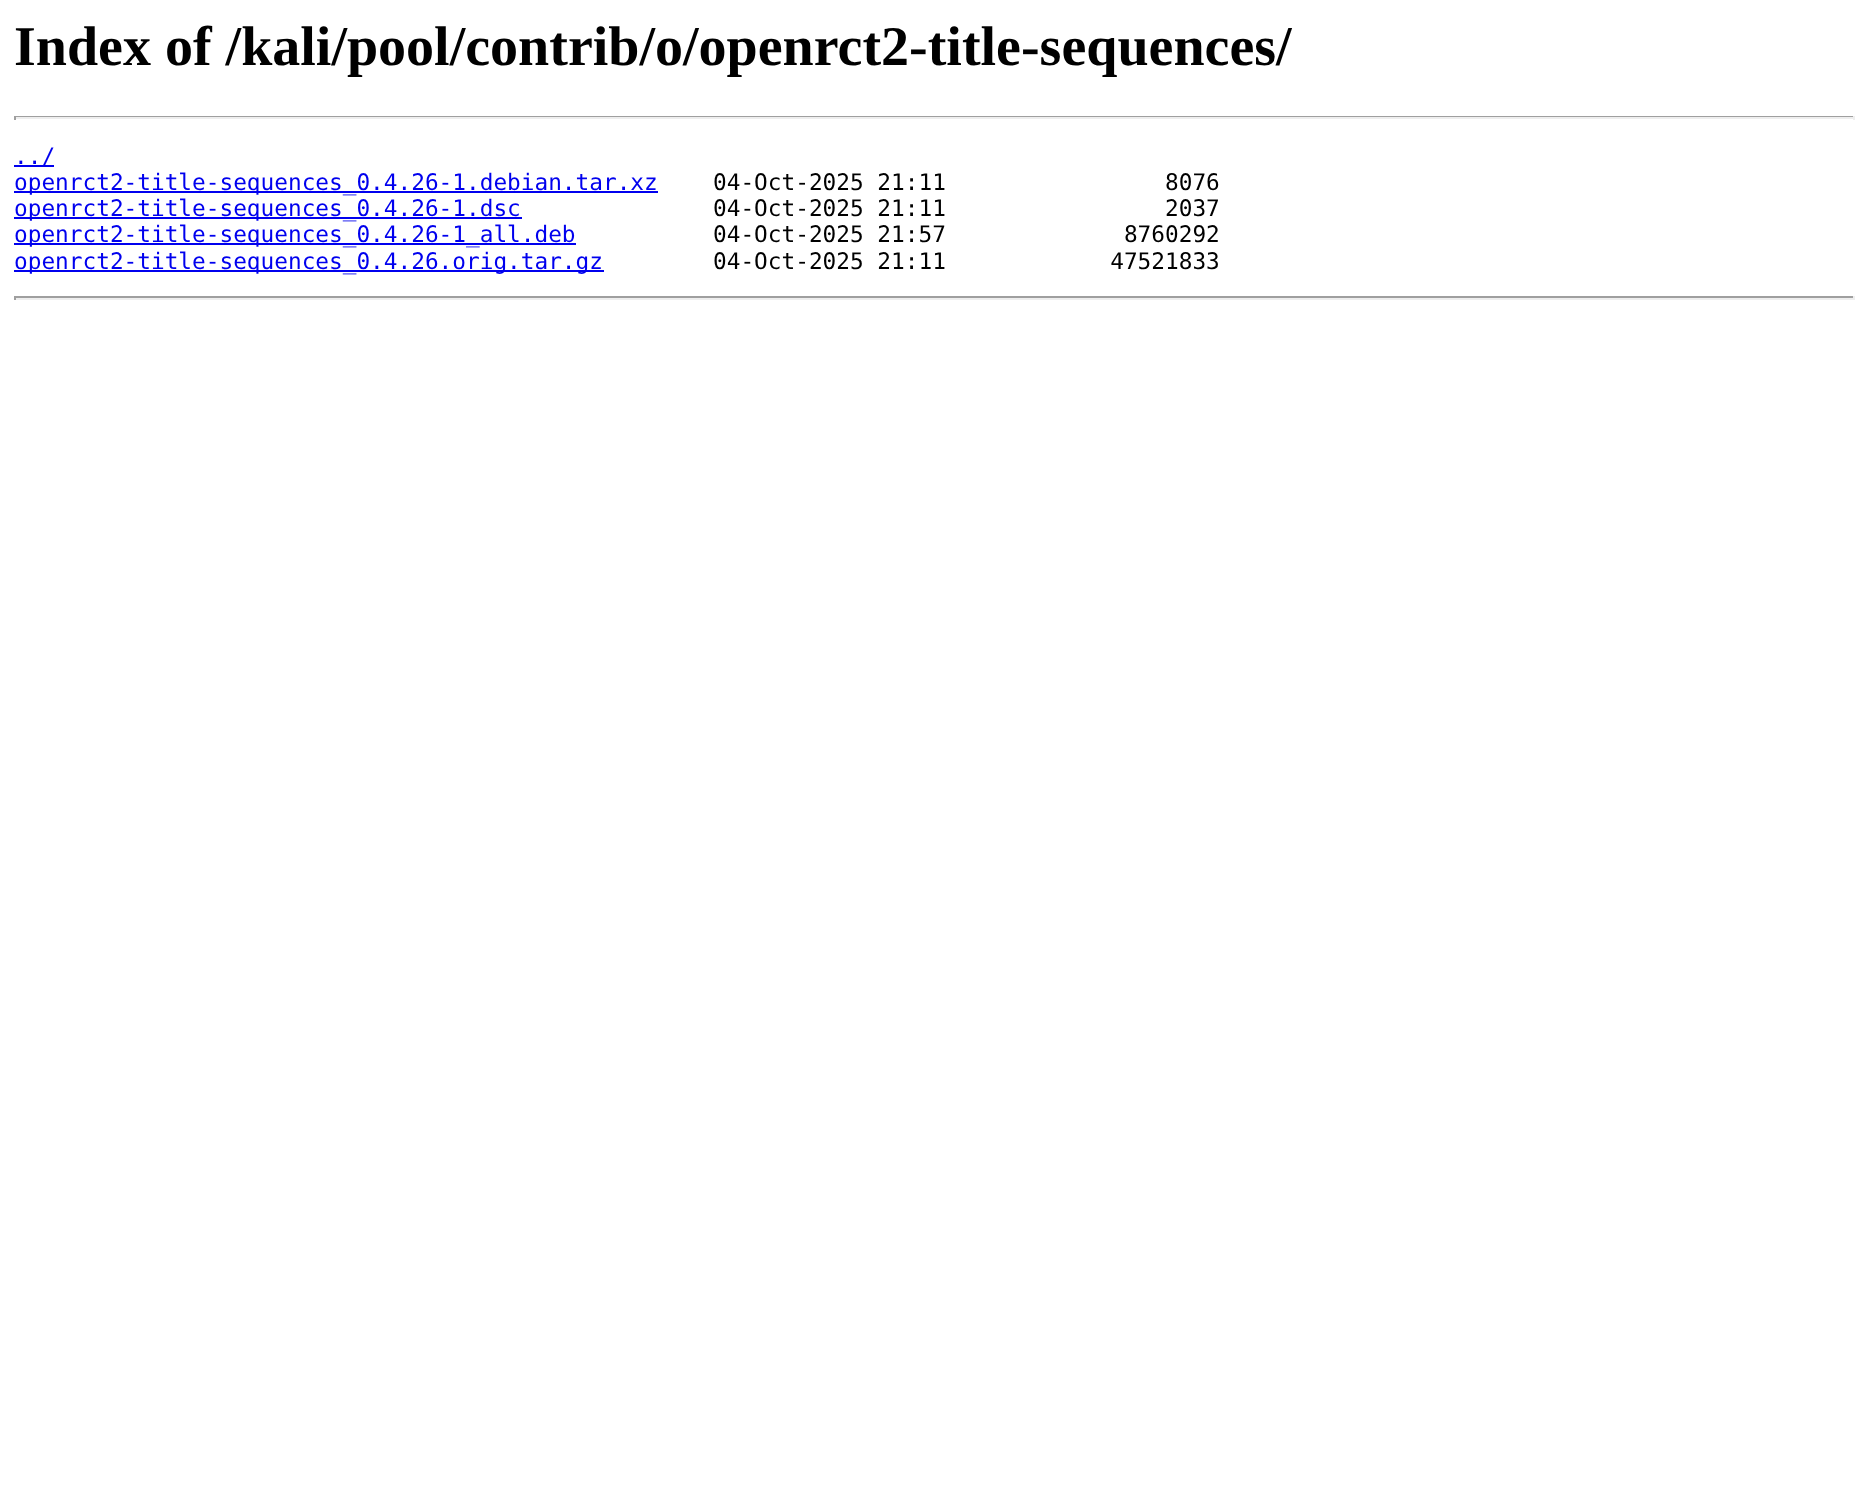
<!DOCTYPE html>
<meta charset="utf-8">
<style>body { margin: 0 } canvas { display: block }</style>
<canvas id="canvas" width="1868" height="1496"></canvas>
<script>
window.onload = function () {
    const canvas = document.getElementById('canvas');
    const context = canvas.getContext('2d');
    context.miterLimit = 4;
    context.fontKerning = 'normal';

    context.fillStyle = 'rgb(255, 255, 255)';
    context.fillRect(0, 0, 1868, 1496);
    context.fillStyle = 'rgb(159, 159, 159)';
    context.fillRect(14, 116, 1841, 1);
    context.fillStyle = 'rgb(238, 238, 238)';
    context.fillRect(1853, 116, 2, 4);
    context.fillRect(14, 117, 1841, 2);
    context.fillStyle = 'rgb(159, 159, 159)';
    context.fillRect(14, 116, 2, 4);
    context.fillStyle = 'rgb(0, 0, 238)';
    context.fillRect(14, 165, 40, 2);
    context.fillRect(14, 191, 644, 2);
    context.fillRect(14, 217, 508, 2);
    context.fillRect(14, 243, 562, 2);
    context.fillRect(14, 270, 590, 2);
    context.fillStyle = 'rgb(159, 159, 159)';
    context.fillRect(14, 296, 1841, 2);
    context.fillStyle = 'rgb(238, 238, 238)';
    context.fillRect(1853, 296, 2, 4);
    context.fillRect(14, 298, 1841, 2);
    context.fillStyle = 'rgb(159, 159, 159)';
    context.fillRect(14, 296, 2, 4);
    context.font = 'bold 56px Liberation Serif';
    context.fillStyle = 'rgb(0, 0, 0)';
    context.fillText('Index of /kali/pool/contrib/o/openrct2-title-sequences/', 14, 65);
    context.font = '22.75px DejaVu Sans Mono';
    context.fillStyle = 'rgb(0, 0, 238)';
    context.fillText('../', 14, 164);
    context.fillText('openrct2-title-sequences_0.4.26-1.debian.tar.xz', 14, 190);
    context.fillStyle = 'rgb(0, 0, 0)';
    context.fillText('04-Oct-2025 21:11                8076', 713, 190);
    context.fillStyle = 'rgb(0, 0, 238)';
    context.fillText('openrct2-title-sequences_0.4.26-1.dsc', 14, 216);
    context.fillStyle = 'rgb(0, 0, 0)';
    context.fillText('04-Oct-2025 21:11                2037', 713, 216);
    context.fillStyle = 'rgb(0, 0, 238)';
    context.fillText('openrct2-title-sequences_0.4.26-1_all.deb', 14, 242);
    context.fillStyle = 'rgb(0, 0, 0)';
    context.fillText('04-Oct-2025 21:57             8760292', 713, 242);
    context.fillStyle = 'rgb(0, 0, 238)';
    context.fillText('openrct2-title-sequences_0.4.26.orig.tar.gz', 14, 269);
    context.fillStyle = 'rgb(0, 0, 0)';
    context.fillText('04-Oct-2025 21:11            47521833', 713, 269);
};
</script>
